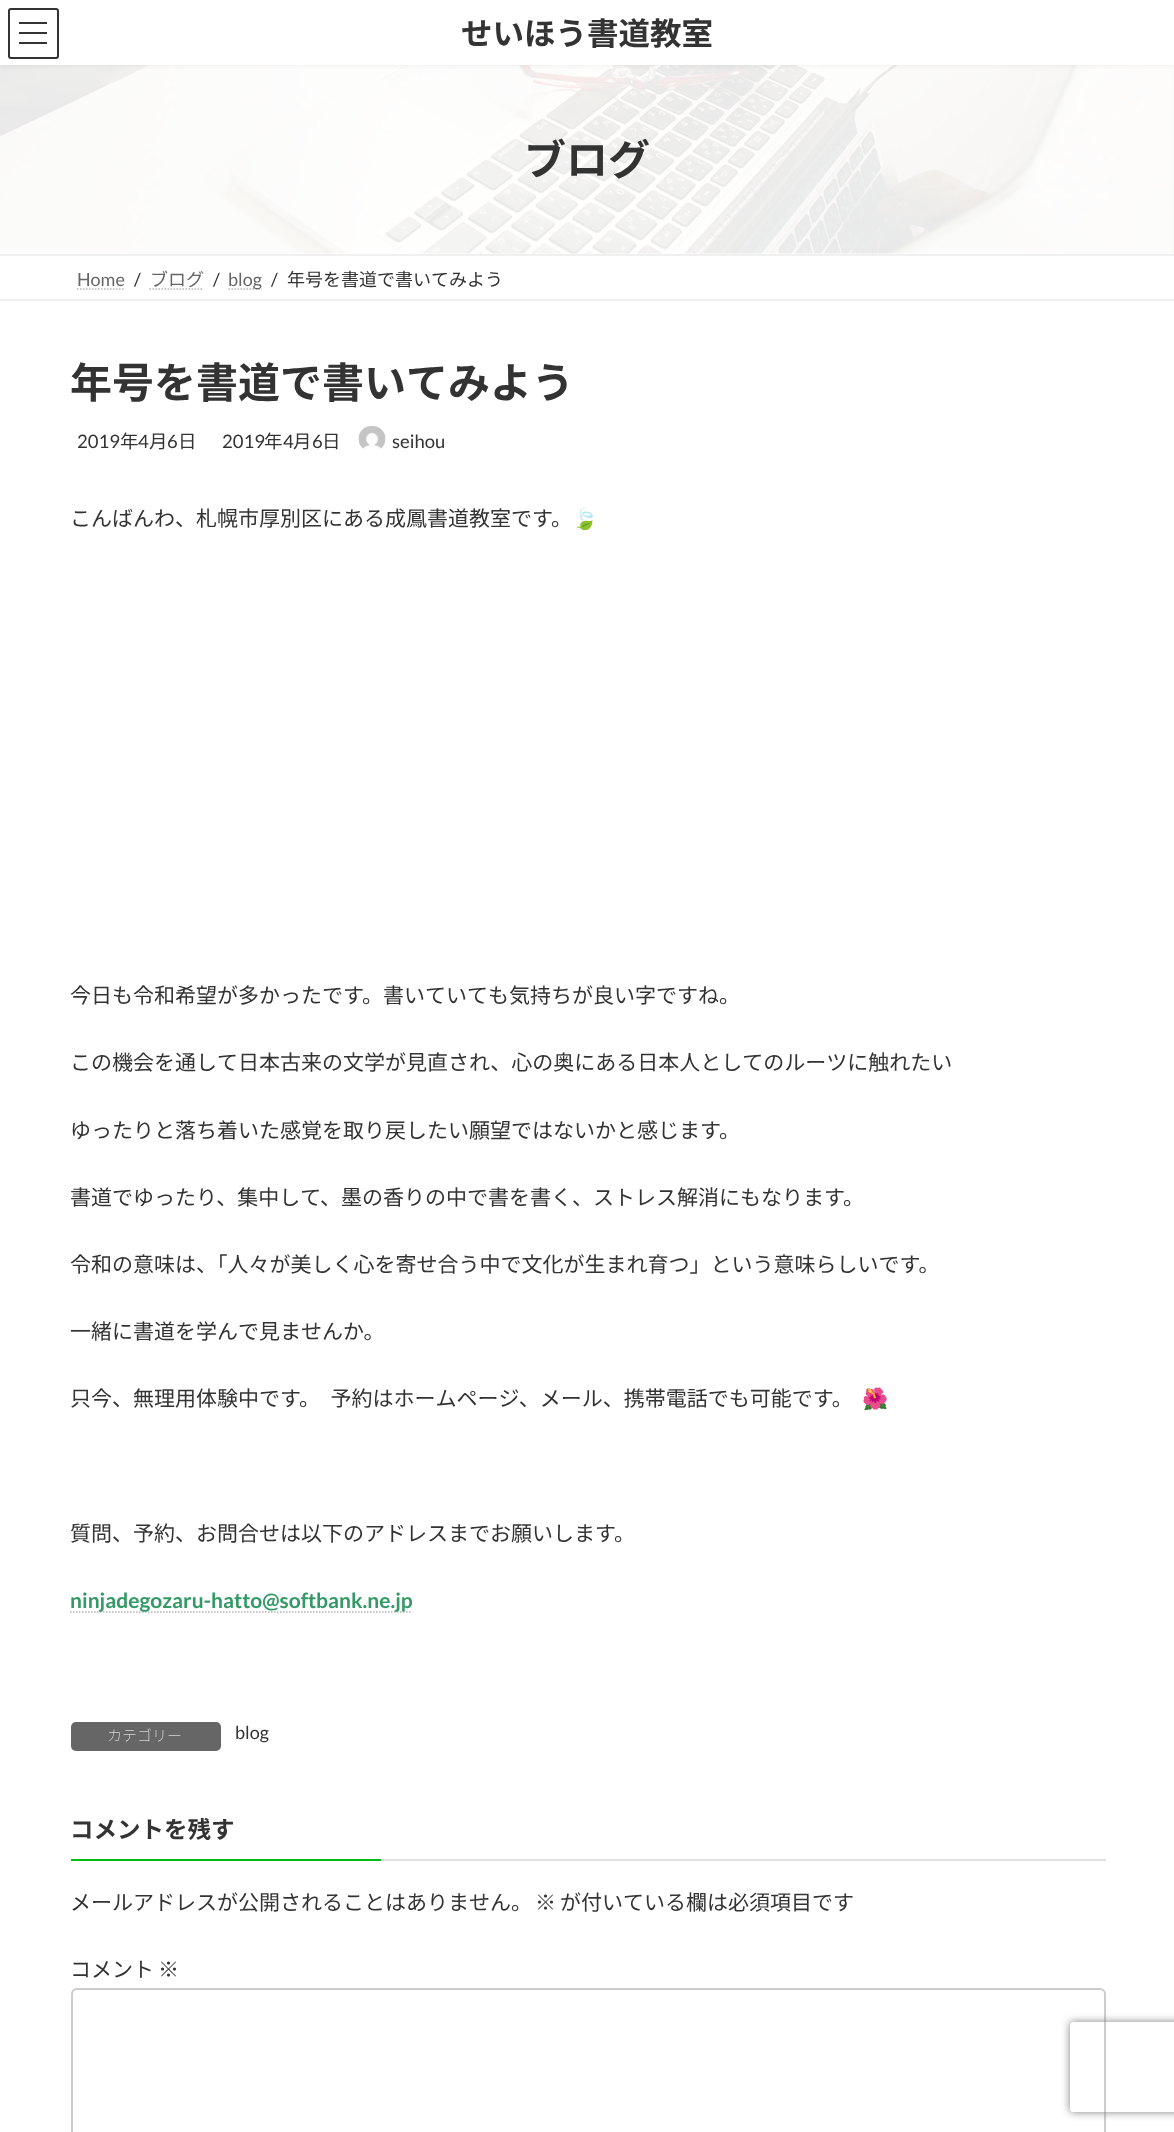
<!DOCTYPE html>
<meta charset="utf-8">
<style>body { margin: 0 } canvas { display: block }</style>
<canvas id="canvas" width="1174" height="2132"></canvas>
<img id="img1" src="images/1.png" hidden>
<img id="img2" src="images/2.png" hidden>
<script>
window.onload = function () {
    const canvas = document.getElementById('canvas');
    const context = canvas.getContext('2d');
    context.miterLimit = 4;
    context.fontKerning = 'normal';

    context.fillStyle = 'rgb(255, 255, 255)';
    context.fillRect(0, 0, 1174, 2132);
    context.drawImage(document.getElementById('img1'), 0, 65, 1174, 189);
    context.fillStyle = 'rgba(0, 0, 0, 0.05)';
    context.filter = 'blur(2px)';
    context.beginPath();
    context.rect(0, 2, 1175, 64);
    context.fill();
    context.filter = 'none';
    context.fillStyle = 'rgb(255, 255, 255)';
    context.fillRect(0, 0, 1174, 65);
    context.fillStyle = 'rgb(51, 51, 51)';
    context.fillRect(19, 22, 28, 2);
    context.fillRect(19, 32, 28, 2);
    context.fillRect(19, 42, 28, 2);
    context.beginPath();
    context.roundRect(9, 9, 49, 49, 2);
    context.strokeStyle = 'rgb(51, 51, 51)';
    context.lineWidth = 2;
    context.stroke();
    context.fillStyle = 'rgb(240, 240, 240)';
    context.fillRect(0, 254, 1174, 2);
    context.fillRect(0, 299, 1174, 2);
    context.beginPath();
    context.moveTo(77, 289);
    context.lineTo(125, 289);
    context.strokeStyle = 'rgb(179, 179, 179)';
    context.lineWidth = 1.5;
    context.setLineDash([1.5, 1.5]);
    context.stroke();
    context.beginPath();
    context.moveTo(149.5, 289);
    context.lineTo(203.5, 289);
    context.stroke();
    context.beginPath();
    context.moveTo(228.5, 289);
    context.lineTo(262, 289);
    context.stroke();
    context.drawImage(document.getElementById('img2'), 358, 426, 28, 23);
    context.beginPath();
    context.moveTo(70, 1612);
    context.lineTo(412.5, 1612);
    context.stroke();
    context.fillStyle = 'rgb(102, 102, 102)';
    context.beginPath();
    context.roundRect(71, 1722, 150, 29, 5);
    context.fill();
    context.fillStyle = 'rgb(224, 224, 224)';
    context.fillRect(381, 1859, 725, 2);
    context.fillStyle = 'rgb(0, 188, 15)';
    context.fillRect(71, 1859, 310, 2);
    context.beginPath();
    context.roundRect(72, 1989, 1033, 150, 5);
    context.strokeStyle = 'rgb(204, 204, 204)';
    context.lineWidth = 2;
    context.setLineDash([]);
    context.stroke();
    context.save();
    context.beginPath();
    context.moveTo(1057, 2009);
    context.lineTo(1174, 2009);
    context.lineTo(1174, 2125);
    context.lineTo(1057, 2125);
    context.closePath();
    context.moveTo(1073, 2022);
    context.lineTo(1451, 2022);
    context.bezierCurveTo(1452.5, 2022, 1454, 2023.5, 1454, 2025);
    context.lineTo(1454, 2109);
    context.bezierCurveTo(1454, 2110.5, 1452.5, 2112, 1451, 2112);
    context.lineTo(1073, 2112);
    context.bezierCurveTo(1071.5, 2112, 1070, 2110.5, 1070, 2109);
    context.lineTo(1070, 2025);
    context.bezierCurveTo(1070, 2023.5, 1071.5, 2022, 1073, 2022);
    context.closePath();
    context.clip('evenodd');
    context.fillStyle = 'rgb(128, 128, 128)';
    context.filter = 'blur(4px)';
    context.beginPath();
    context.roundRect(1070, 2022, 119, 90, 3);
    context.fill();
    context.filter = 'none';
    context.restore();
    context.font = 'bold 31.5px Noto Sans JP';
    context.fillStyle = 'rgb(51, 51, 51)';
    context.fillText('せいほう書道教室', 461, 45);
    context.font = 'bold 42px Noto Sans JP';
    context.fillText('ブログ', 524, 175);
    context.font = '18px Lato';
    context.fillStyle = 'rgb(102, 102, 102)';
    context.fillText('Home', 77, 286);
    context.fillStyle = 'rgb(51, 51, 51)';
    context.fillText('/', 134, 286);
    context.font = '18px Noto Sans JP';
    context.fillStyle = 'rgb(102, 102, 102)';
    context.fillText('ブログ', 150, 286);
    context.font = '18px Lato';
    context.fillStyle = 'rgb(51, 51, 51)';
    context.fillText('/', 213, 286);
    context.fillStyle = 'rgb(102, 102, 102)';
    context.fillText('blog', 228, 286);
    context.fillStyle = 'rgb(51, 51, 51)';
    context.fillText('/', 271, 286);
    context.font = '18px Noto Sans JP';
    context.fillText('年号を書道で書いてみよう', 287, 286);
    context.font = 'bold 42px Noto Sans JP';
    context.fillText('年号を書道で書いてみよう', 70, 398);
    context.font = '18.5px Lato';
    context.fillText('2019', 77, 448);
    context.font = '18.5px Noto Sans JP';
    context.fillText('年', 120, 448);
    context.font = '18.5px Lato';
    context.fillText('4', 138, 448);
    context.font = '18.5px Noto Sans JP';
    context.fillText('月', 149, 448);
    context.font = '18.5px Lato';
    context.fillText('6', 167, 448);
    context.font = '18.5px Noto Sans JP';
    context.fillText('日', 178, 448);
    context.font = '18.5px Lato';
    context.fillText('2019', 222, 448);
    context.font = '18.5px Noto Sans JP';
    context.fillText('年', 264, 448);
    context.font = '18.5px Lato';
    context.fillText('4', 283, 448);
    context.font = '18.5px Noto Sans JP';
    context.fillText('月', 293, 448);
    context.font = '18.5px Lato';
    context.fillText('6', 312, 448);
    context.font = '18.5px Noto Sans JP';
    context.fillText('日', 322, 448);
    context.font = '18.5px Lato';
    context.fillText('seihou', 392, 448);
    context.font = '21px Noto Sans JP';
    context.fillText('こんばんわ、札幌市厚別区にある成鳳書道教室です。', 70, 526);
    context.font = '21px Noto Color Emoji';
    context.fillText('🍃', 572, 526);
    context.font = '21px Noto Sans JP';
    context.fillText('今日も令和希望が多かったです。書いていても気持ちが良い字ですね。', 70, 1003);
    context.fillText('この機会を通して日本古来の文学が見直され、心の奥にある日本人としてのルーツに触れたい', 70, 1070);
    context.fillText('ゆったりと落ち着いた感覚を取り戻したい願望ではないかと感じます。', 70, 1138);
    context.fillText('書道でゆったり、集中して、墨の香りの中で書を書く、ストレス解消にもなります。', 70, 1205);
    context.fillText('令和の意味は、「人々が美しく心を寄せ合う中で文化が生まれ育つ」という意味らしいです。', 70, 1272);
    context.fillText('一緒に書道を学んで見ませんか。', 70, 1339);
    context.fillText('只今、無理用体験中です。　予約はホームページ、メール、携帯電話でも可能です。', 70, 1406);
    context.font = '21px Noto Color Emoji';
    context.fillText('🌺', 862, 1406);
    context.font = '21px Noto Sans JP';
    context.fillText('質問、予約、お問合せは以下のアドレスまでお願いします。', 70, 1541);
    context.font = 'bold 21px Lato';
    context.fillStyle = 'rgb(51, 153, 102)';
    context.fillText('ninjadegozaru-hatto@softbank.ne.jp', 70, 1608);
    context.font = '100 15px Noto Sans JP';
    context.fillStyle = 'rgb(255, 255, 255)';
    context.fillText('カテゴリー', 107, 1741);
    context.font = '18px Lato';
    context.fillStyle = 'rgb(51, 51, 51)';
    context.fillText('blog', 235, 1739);
    context.font = 'bold 23.5px Noto Sans JP';
    context.fillText('コメントを残す', 70, 1838);
    context.font = '21px Noto Sans JP';
    context.fillText('メールアドレスが公開されることはありません。', 70, 1910);
    context.fillText('※', 535, 1910);
    context.fillText('が付いている欄は必須項目です', 560, 1910);
    context.fillText('コメント', 70, 1977);
    context.fillText('※', 158, 1977);
};
</script>
